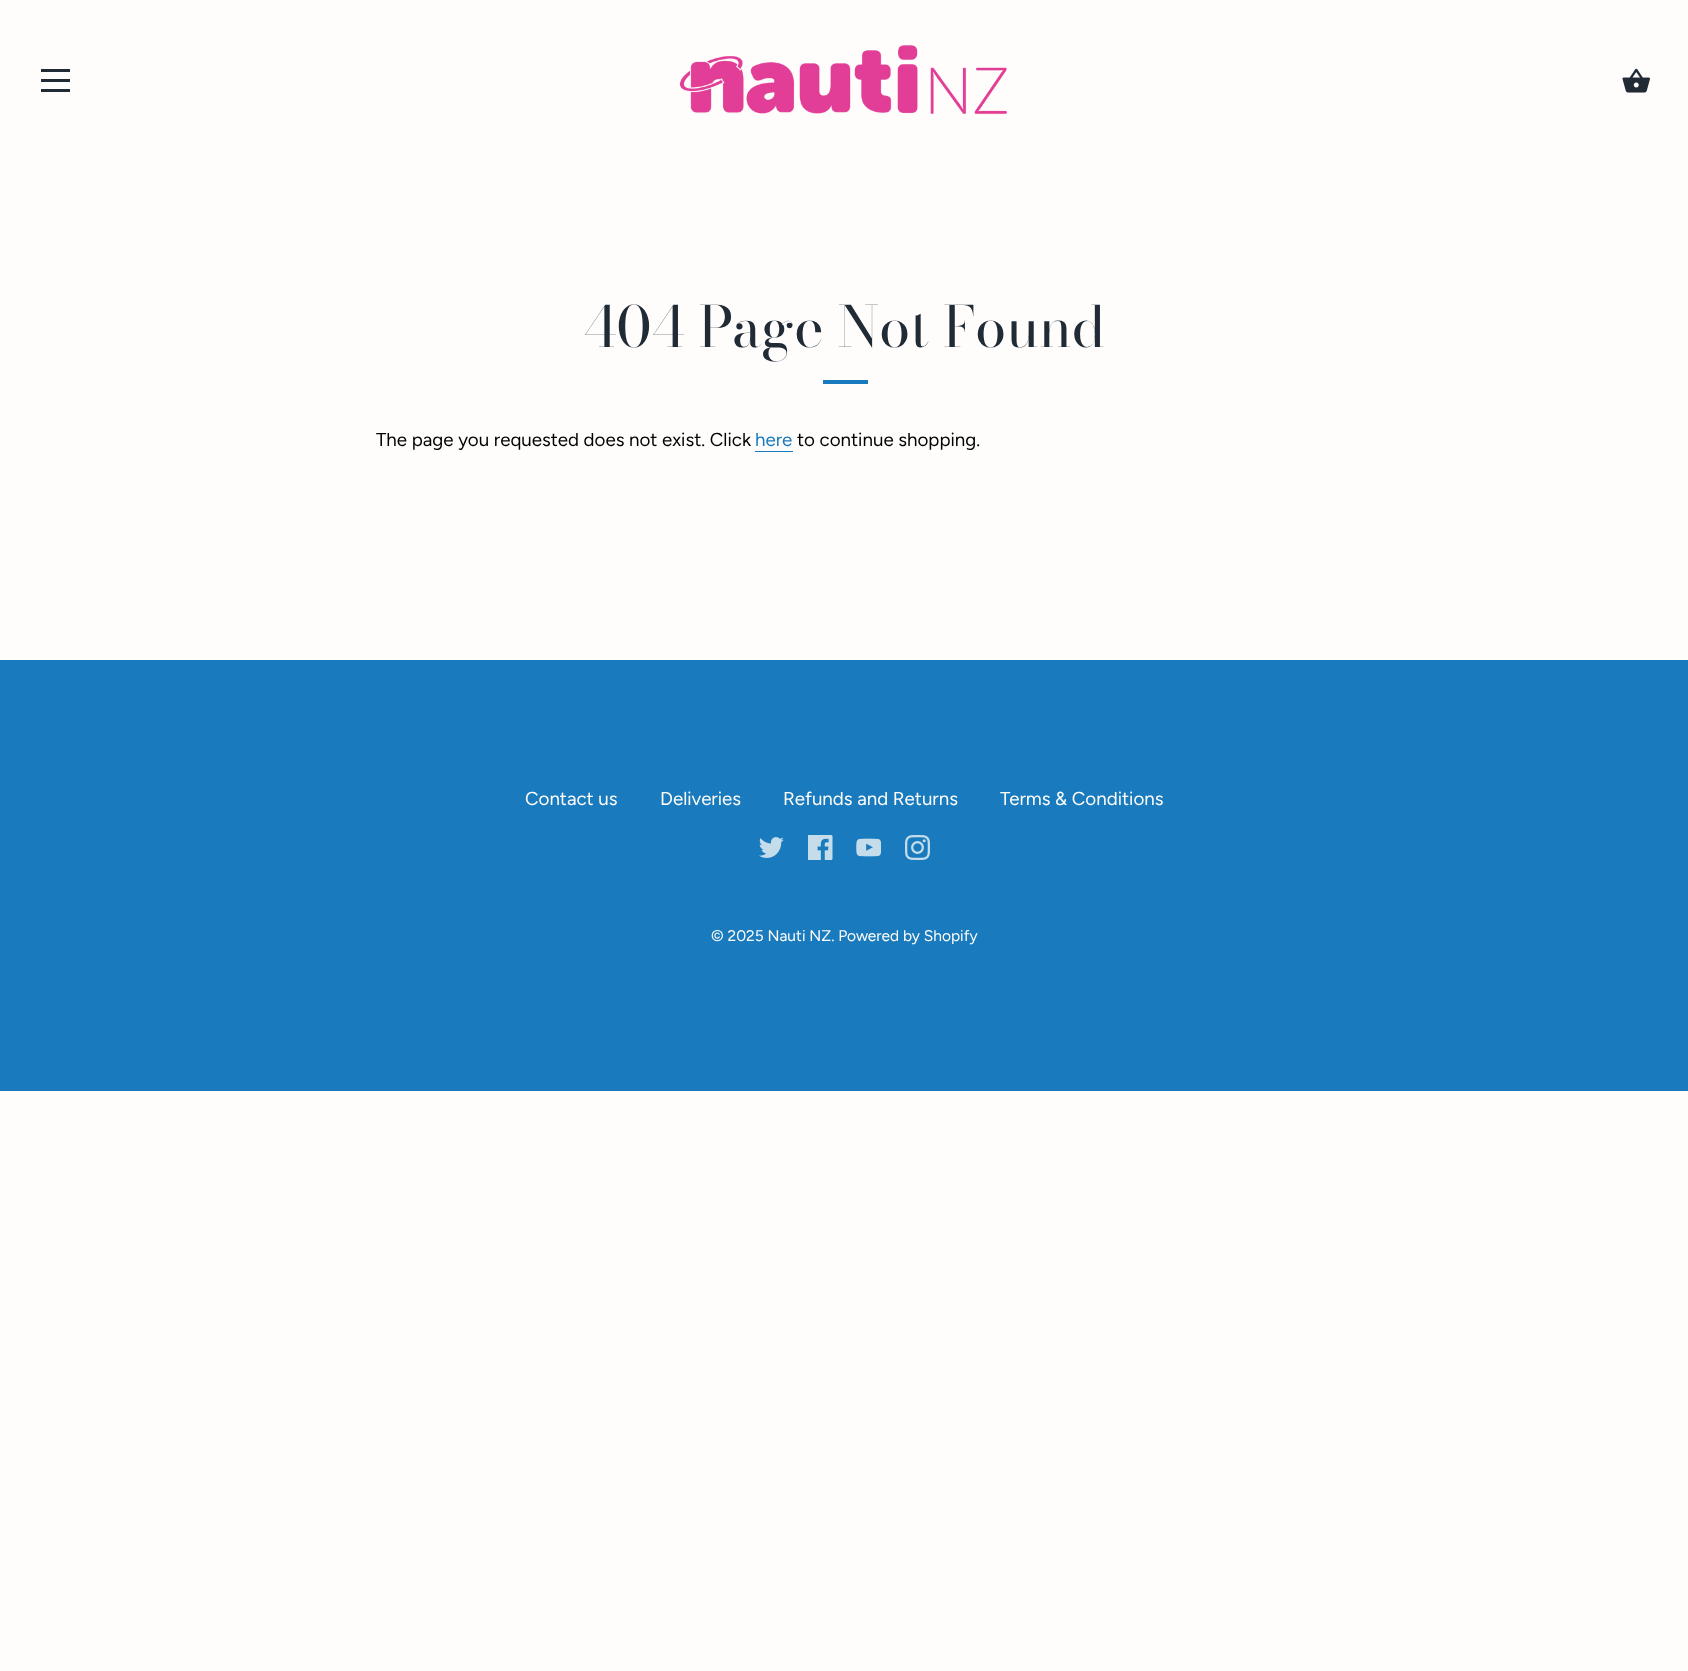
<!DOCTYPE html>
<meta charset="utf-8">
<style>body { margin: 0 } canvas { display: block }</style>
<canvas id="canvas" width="1688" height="1671"></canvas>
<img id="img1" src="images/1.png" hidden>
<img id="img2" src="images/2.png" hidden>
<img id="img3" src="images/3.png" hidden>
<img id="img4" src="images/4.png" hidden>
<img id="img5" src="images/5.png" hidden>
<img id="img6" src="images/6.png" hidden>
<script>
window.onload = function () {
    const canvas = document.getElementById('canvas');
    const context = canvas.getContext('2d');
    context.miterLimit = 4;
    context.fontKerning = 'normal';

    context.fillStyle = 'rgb(255, 253, 251)';
    context.fillRect(0, 0, 1688, 1671);
    context.fillStyle = 'rgb(33, 43, 54)';
    context.fillRect(41, 69, 29, 3);
    context.fillRect(41, 79, 29, 3);
    context.fillRect(41, 89, 29, 3);
    context.drawImage(document.getElementById('img1'), 679, 45, 328, 70);
    context.drawImage(document.getElementById('img2'), 1622, 68, 28, 25);
    context.fillStyle = 'rgb(25, 123, 189)';
    context.fillRect(823, 380, 45, 4);
    context.fillRect(755, 451, 38, 1);
    context.fillRect(0, 660, 1688, 431);
    context.drawImage(document.getElementById('img3'), 759, 837, 25, 21);
    context.drawImage(document.getElementById('img4'), 808, 835, 25, 25);
    context.drawImage(document.getElementById('img5'), 856, 838, 25, 19);
    context.drawImage(document.getElementById('img6'), 905, 835, 25, 25);
    context.font = '56.25px Bodoni Moda';
    context.fillStyle = 'rgb(33, 43, 54)';
    context.fillText('404 Page Not Found', 583, 347);
    context.font = '18.75px Figtree';
    context.fillStyle = 'rgb(0, 0, 0)';
    context.fillText('The page you requested does not exist. Click', 376, 446);
    context.fillStyle = 'rgb(25, 123, 189)';
    context.fillText('here', 755, 446);
    context.fillStyle = 'rgb(0, 0, 0)';
    context.fillText('to continue shopping.', 797, 446);
    context.fillStyle = 'rgb(255, 253, 251)';
    context.fillText('Contact us', 525, 805);
    context.fillText('Deliveries', 660, 805);
    context.fillText('Refunds and Returns', 783, 805);
    context.fillText('Terms & Conditions', 1000, 805);
    context.font = '15.5px Figtree';
    context.fillText('© 2025 Nauti NZ. Powered by Shopify', 711, 941);
};
</script>
